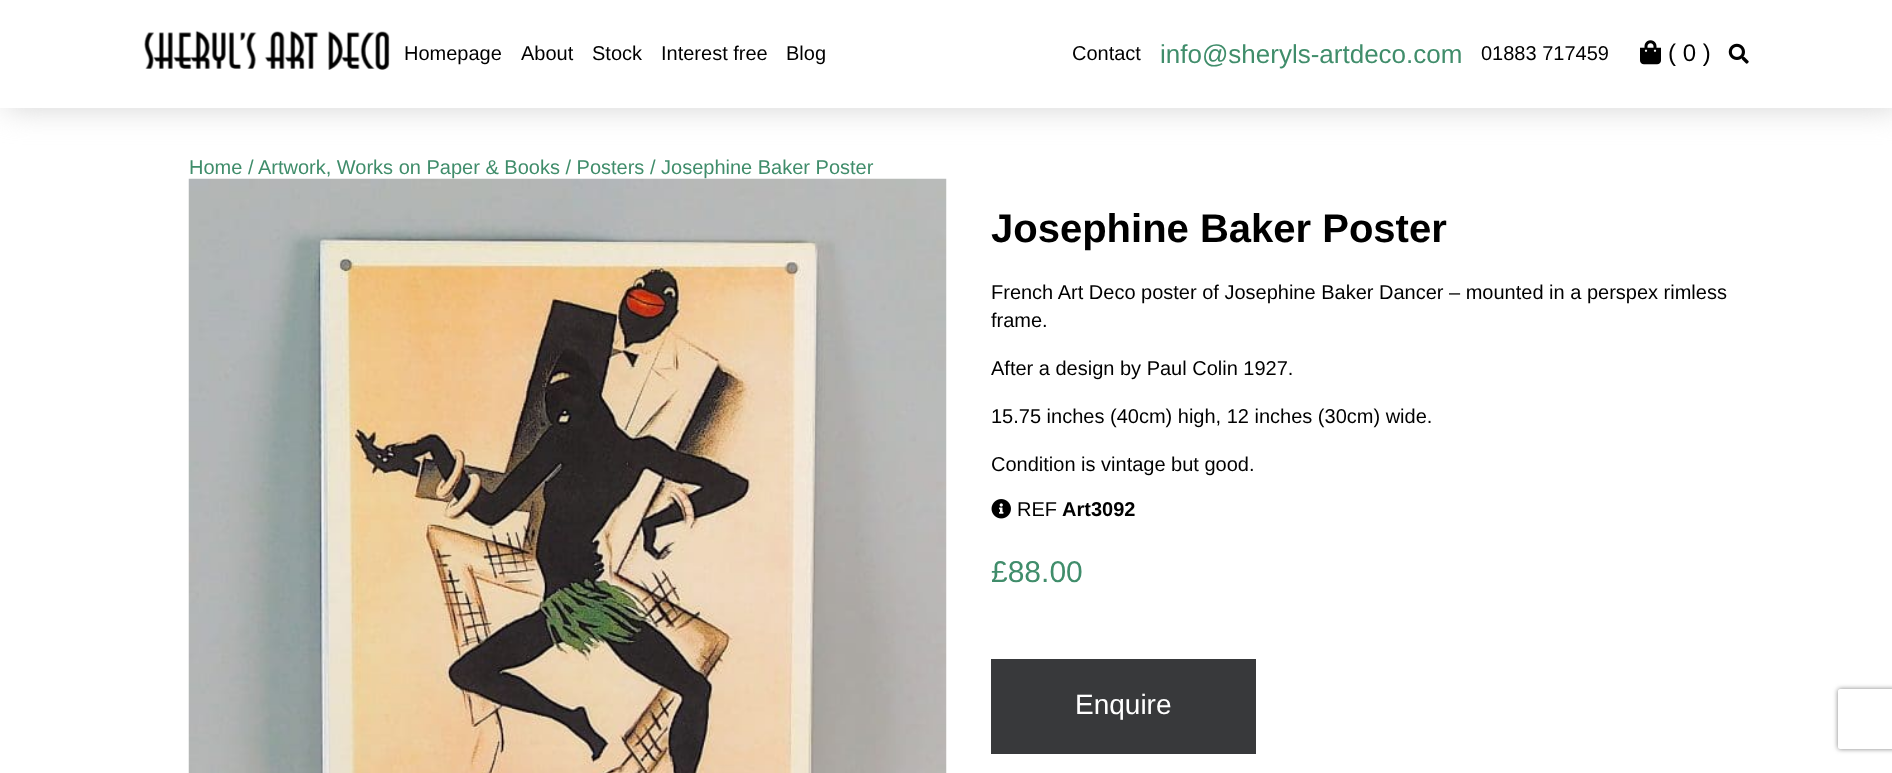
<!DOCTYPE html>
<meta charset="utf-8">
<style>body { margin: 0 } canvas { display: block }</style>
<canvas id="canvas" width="1892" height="773"></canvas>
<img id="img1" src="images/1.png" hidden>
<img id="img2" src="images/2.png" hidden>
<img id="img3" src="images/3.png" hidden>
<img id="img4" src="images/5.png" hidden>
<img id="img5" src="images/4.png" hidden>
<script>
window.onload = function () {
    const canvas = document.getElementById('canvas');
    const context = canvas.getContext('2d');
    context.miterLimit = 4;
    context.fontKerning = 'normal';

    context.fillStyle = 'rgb(255, 255, 255)';
    context.fillRect(0, 0, 1892, 773);
    context.fillStyle = 'rgb(211, 211, 211)';
    context.filter = 'blur(15.5px)';
    context.beginPath();
    context.rect(6, 0, 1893, 108);
    context.fill();
    context.filter = 'none';
    context.fillStyle = 'rgb(255, 255, 255)';
    context.fillRect(0, 0, 1892, 108);
    context.drawImage(document.getElementById('img1'), 144, 30, 246, 40);
    context.drawImage(document.getElementById('img2'), 1640, 40, 21, 25);
    context.drawImage(document.getElementById('img3'), 1728, 43, 21, 21);
    context.drawImage(document.getElementById('img4'), 991, 499, 20, 20);
    context.fillStyle = 'rgb(56, 57, 59)';
    context.fillRect(991, 659, 265, 95);
    context.save();
    context.beginPath();
    context.moveTo(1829, 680);
    context.lineTo(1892, 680);
    context.lineTo(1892, 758);
    context.lineTo(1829, 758);
    context.closePath();
    context.moveTo(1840, 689);
    context.lineTo(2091, 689);
    context.bezierCurveTo(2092, 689, 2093, 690, 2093, 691);
    context.lineTo(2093, 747);
    context.bezierCurveTo(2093, 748, 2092, 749, 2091, 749);
    context.lineTo(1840, 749);
    context.bezierCurveTo(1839, 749, 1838, 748, 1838, 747);
    context.lineTo(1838, 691);
    context.bezierCurveTo(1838, 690, 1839, 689, 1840, 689);
    context.closePath();
    context.clip('evenodd');
    context.fillStyle = 'rgb(128, 128, 128)';
    context.filter = 'blur(2.5px)';
    context.beginPath();
    context.roundRect(1838, 689, 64, 60, 2);
    context.fill();
    context.filter = 'none';
    context.restore();
    context.font = '20px Liberation Sans';
    context.fillStyle = 'rgb(0, 0, 0)';
    context.fillText('Homepage', 404, 60);
    context.fillText('About', 521, 60);
    context.fillText('Stock', 592, 60);
    context.fillText('Interest free', 661, 60);
    context.fillText('Blog', 786, 60);
    context.fillText('Contact', 1072, 60);
    context.font = '26px Liberation Sans';
    context.fillStyle = 'rgb(64, 141, 107)';
    context.fillText('info@sheryls-artdeco.com', 1160, 63);
    context.font = '20px Liberation Sans';
    context.fillStyle = 'rgb(0, 0, 0)';
    context.fillText('01883 717459', 1481, 60);
    context.font = '24px Liberation Sans';
    context.fillText('( 0 )', 1668, 61);
    context.font = '20px Liberation Sans';
    context.fillStyle = 'rgb(64, 141, 107)';
    context.fillText('Home / Artwork, Works on Paper & Books / Posters / Josephine Baker Poster', 189, 174);
    context.drawImage(document.getElementById('img5'), 188, 178, 759, 595);
    context.font = 'bold 40px Liberation Sans';
    context.fillStyle = 'rgb(0, 0, 0)';
    context.fillText('Josephine Baker Poster', 991, 242);
    context.font = '20px Liberation Sans';
    context.fillText('French Art Deco poster of Josephine Baker Dancer – mounted in a perspex rimless', 991, 299);
    context.fillText('frame.', 991, 327);
    context.fillText('After a design by Paul Colin 1927.', 991, 375);
    context.fillText('15.75 inches (40cm) high, 12 inches (30cm) wide.', 991, 423);
    context.fillText('Condition is vintage but good.', 991, 471);
    context.fillText('REF', 1017, 516);
    context.font = 'bold 20px Liberation Sans';
    context.fillText('Art3092', 1062, 516);
    context.font = '30px Liberation Sans';
    context.fillStyle = 'rgb(64, 141, 107)';
    context.fillText('£88.00', 991, 582);
    context.font = '28px Liberation Sans';
    context.fillStyle = 'rgb(255, 255, 255)';
    context.fillText('Enquire', 1075, 714);
};
</script>
